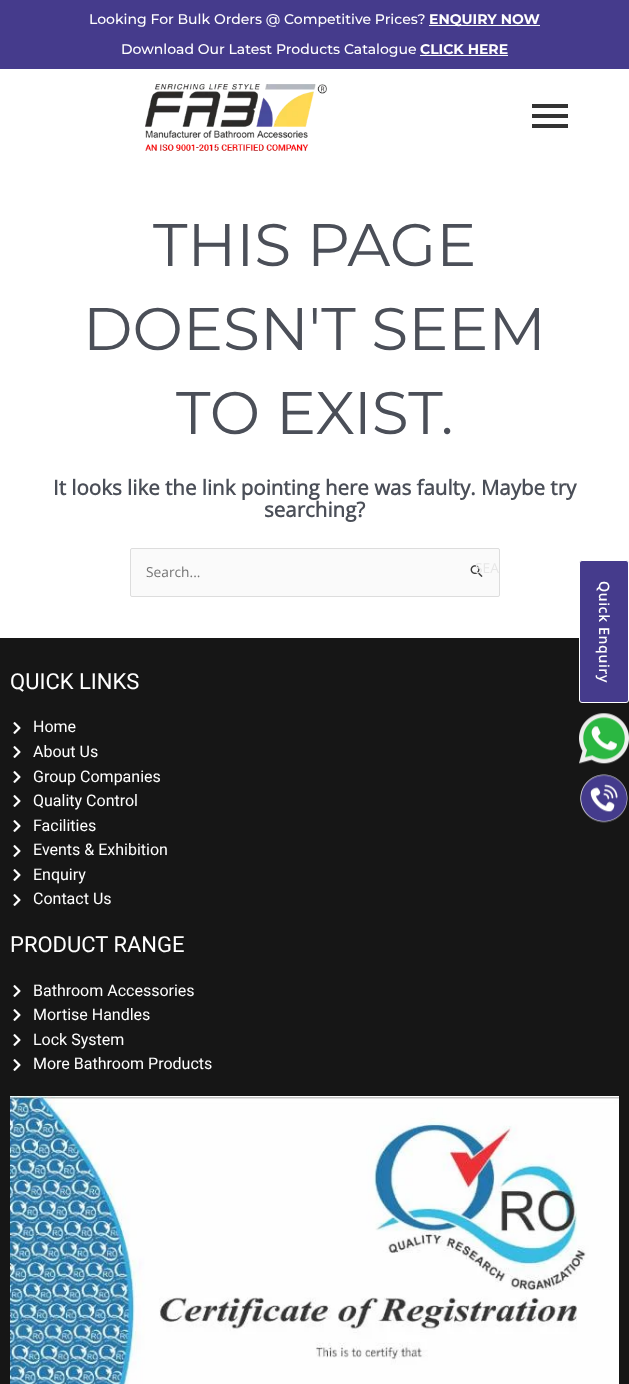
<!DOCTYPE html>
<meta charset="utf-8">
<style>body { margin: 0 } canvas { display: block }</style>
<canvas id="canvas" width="629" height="1384"></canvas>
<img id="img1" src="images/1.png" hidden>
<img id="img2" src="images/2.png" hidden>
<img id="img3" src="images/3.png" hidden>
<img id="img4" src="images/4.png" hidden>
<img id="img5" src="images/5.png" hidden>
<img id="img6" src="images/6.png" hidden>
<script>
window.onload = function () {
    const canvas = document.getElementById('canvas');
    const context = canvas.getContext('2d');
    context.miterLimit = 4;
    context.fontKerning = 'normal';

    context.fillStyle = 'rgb(255, 255, 255)';
    context.fillRect(0, 0, 629, 1384);
    context.fillStyle = 'rgb(69, 59, 140)';
    context.fillRect(0, 0, 629, 69);
    context.fillStyle = 'rgb(255, 255, 255)';
    context.fillRect(429, 25, 111, 1);
    context.fillRect(420, 55, 88, 1);
    context.drawImage(document.getElementById('img1'), 145, 84, 182, 67);
    context.fillStyle = 'rgb(51, 51, 51)';
    context.fillRect(532, 104, 36, 4);
    context.fillRect(532, 114, 36, 4);
    context.fillRect(532, 124, 36, 4);
    context.fillStyle = 'rgb(250, 250, 250)';
    context.beginPath();
    context.roundRect(130.5, 548.5, 369, 48, 1.5);
    context.fill();
    context.strokeStyle = 'rgb(221, 221, 221)';
    context.stroke();
    context.drawImage(document.getElementById('img2'), 470, 565, 13, 12);
    context.fillStyle = 'rgb(22, 22, 22)';
    context.fillRect(0, 638, 629, 746);
    context.drawImage(document.getElementById('img3'), 13, 722, 8, 12);
    context.drawImage(document.getElementById('img3'), 13, 746, 8, 12);
    context.drawImage(document.getElementById('img3'), 13, 771, 8, 12);
    context.drawImage(document.getElementById('img3'), 13, 795, 8, 12);
    context.drawImage(document.getElementById('img3'), 13, 820, 8, 12);
    context.drawImage(document.getElementById('img3'), 13, 845, 8, 12);
    context.drawImage(document.getElementById('img3'), 13, 869, 8, 12);
    context.drawImage(document.getElementById('img3'), 13, 894, 8, 12);
    context.drawImage(document.getElementById('img3'), 13, 985, 8, 12);
    context.drawImage(document.getElementById('img3'), 13, 1009, 8, 12);
    context.drawImage(document.getElementById('img3'), 13, 1034, 8, 12);
    context.drawImage(document.getElementById('img3'), 13, 1059, 8, 12);
    context.drawImage(document.getElementById('img4'), 10, 1096, 609, 288);
    context.fillStyle = 'rgb(69, 59, 140)';
    context.beginPath();
    context.roundRect(579.5, 560.5, 49, 142, 2.5);
    context.fill();
    context.strokeStyle = 'rgb(255, 255, 255)';
    context.stroke();
    context.drawImage(document.getElementById('img5'), 579, 713, 50, 51);
    context.drawImage(document.getElementById('img6'), 580, 774, 48, 49);
    context.font = '500 14px Montserrat';
    context.fillStyle = 'rgb(255, 255, 255)';
    context.fillText('Looking For Bulk Orders @ Competitive Prices?', 89, 24);
    context.font = 'bold 14px Montserrat';
    context.fillText('ENQUIRY NOW', 429, 24);
    context.font = '500 14px Montserrat';
    context.fillText('Download Our Latest Products Catalogue', 121, 54);
    context.font = 'bold 14px Montserrat';
    context.fillText('CLICK HERE', 420, 54);
    context.font = '60px Montserrat';
    context.fillStyle = 'rgb(75, 79, 88)';
    context.fillText('THIS PAGE', 153, 266);
    context.fillText('DOESN\'T SEEM', 83, 350);
    context.fillText('TO EXIST.', 176, 434);
    context.font = 'bold 20.5px Open Sans';
    context.fillText('It looks like the link pointing here was faulty. Maybe try', 53, 495);
    context.fillText('searching?', 264, 517);
    context.font = '13.75px Open Sans';
    context.fillStyle = 'rgb(117, 117, 117)';
    context.fillText('Search...', 146, 577);
    context.fillStyle = 'rgb(231, 231, 231)';
    context.fillText('SEA', 475, 573);
    context.font = '22px Roboto';
    context.fillStyle = 'rgb(255, 255, 255)';
    context.fillText('QUICK LINKS', 10, 689);
    context.font = '16px Roboto';
    context.fillText('Home', 33, 732);
    context.fillText('About Us', 33, 757);
    context.fillText('Group Companies', 33, 782);
    context.fillText('Quality Control', 33, 806);
    context.fillText('Facilities', 33, 831);
    context.fillText('Events & Exhibition', 33, 855);
    context.fillText('Enquiry', 33, 880);
    context.fillText('Contact Us', 33, 904);
    context.font = '22px Roboto';
    context.fillText('PRODUCT RANGE', 10, 952);
    context.font = '16px Roboto';
    context.fillText('Bathroom Accessories', 33, 996);
    context.fillText('Mortise Handles', 33, 1020);
    context.fillText('Lock System', 33, 1045);
    context.fillText('More Bathroom Products', 33, 1069);
    context.letterSpacing = '1px';
    context.font = 'bold 13.75px Open Sans';
    context.save();
    context.translate(599, 581);
    context.rotate(90 * Math.PI / 180);
    context.fillText('Quick Enquiry', 0, 0);
    context.restore();
};
</script>
